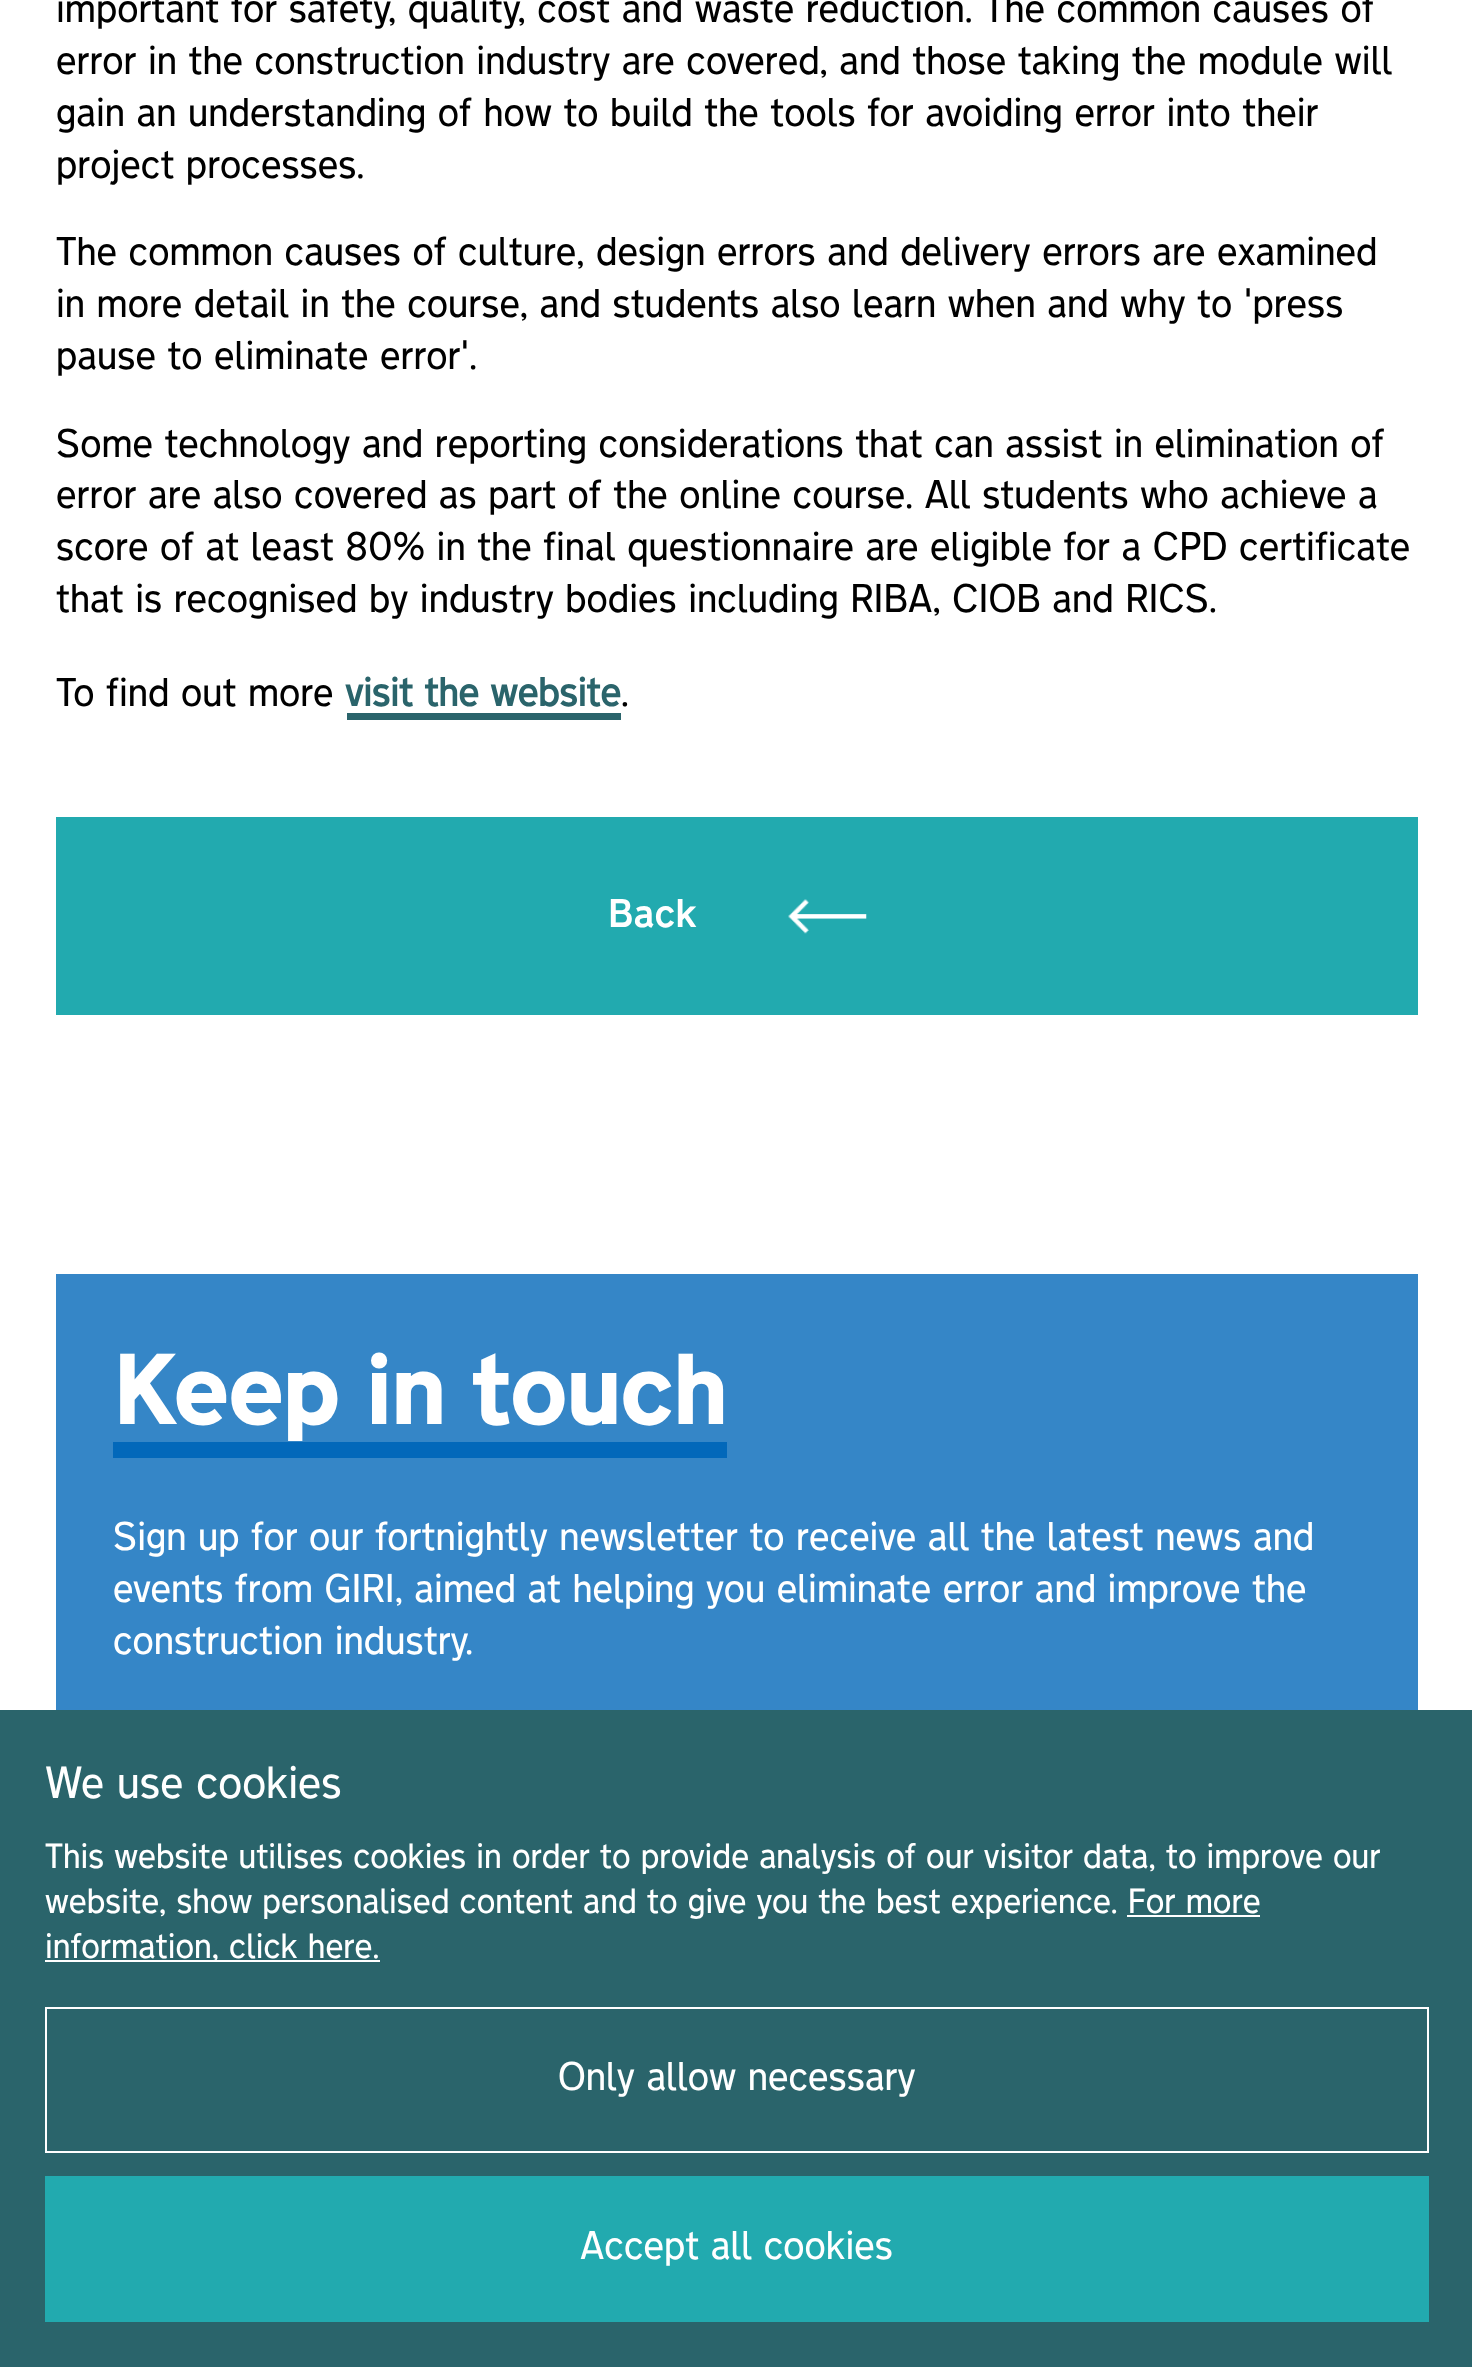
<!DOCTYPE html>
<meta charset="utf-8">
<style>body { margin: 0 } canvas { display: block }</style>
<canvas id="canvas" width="1472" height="2367"></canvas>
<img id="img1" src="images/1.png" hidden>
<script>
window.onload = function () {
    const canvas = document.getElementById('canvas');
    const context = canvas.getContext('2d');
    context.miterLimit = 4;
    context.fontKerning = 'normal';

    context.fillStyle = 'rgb(255, 255, 255)';
    context.fillRect(0, 0, 1472, 2367);
    context.fillStyle = 'rgb(42, 100, 107)';
    context.fillRect(347, 713, 274, 7);
    context.fillStyle = 'rgb(34, 170, 175)';
    context.fillRect(56, 817, 1362, 198);
    context.drawImage(document.getElementById('img1'), 788, 899, 79, 35);
    context.fillStyle = 'rgb(53, 134, 199)';
    context.fillRect(56, 1274, 1362, 436);
    context.fillStyle = 'rgb(2, 104, 186)';
    context.fillRect(113, 1442, 614, 16);
    context.fillStyle = 'rgb(42, 100, 107)';
    context.fillRect(0, 1710, 1472, 657);
    context.fillStyle = 'rgb(255, 255, 255)';
    context.fillRect(1127, 1915, 133, 2);
    context.fillRect(45, 1960, 335, 2);
    context.strokeStyle = 'rgb(255, 255, 255)';
    context.lineWidth = 2;
    context.strokeRect(46, 2008, 1382, 144);
    context.fillStyle = 'rgb(34, 170, 175)';
    context.fillRect(45, 2176, 1384, 146);
    context.font = '36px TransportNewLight';
    context.fillStyle = 'rgb(0, 0, 0)';
    context.fillText('important for safety, quality, cost and waste reduction. The common causes of', 56, 22);
    context.fillText('error in the construction industry are covered, and those taking the module will', 56, 74);
    context.fillText('gain an understanding of how to build the tools for avoiding error into their', 56, 126);
    context.fillText('project processes.', 56, 178);
    context.fillText('The common causes of culture, design errors and delivery errors are examined', 56, 265);
    context.fillText('in more detail in the course, and students also learn when and why to \'press', 56, 317);
    context.fillText('pause to eliminate error\'.', 56, 369);
    context.fillText('Some technology and reporting considerations that can assist in elimination of', 56, 457);
    context.fillText('error are also covered as part of the online course. All students who achieve a', 56, 508);
    context.fillText('score of at least 80% in the final questionnaire are eligible for a CPD certificate', 56, 560);
    context.fillText('that is recognised by industry bodies including RIBA, CIOB and RICS.', 56, 612);
    context.fillText('To find out more', 56, 706);
    context.font = 'bold 36px TransportNewLight';
    context.fillStyle = 'rgb(42, 100, 107)';
    context.fillText('visit the website', 345, 706);
    context.font = '36px TransportNewLight';
    context.fillStyle = 'rgb(0, 0, 0)';
    context.fillText('.', 621, 706);
    context.font = '36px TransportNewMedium';
    context.fillStyle = 'rgb(255, 255, 255)';
    context.fillText('Back', 608, 927);
    context.letterSpacing = '-2.25px';
    context.font = '90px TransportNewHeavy';
    context.fillText('Keep in touch', 113, 1424);
    context.letterSpacing = '0px';
    context.font = '36px TransportNewLight';
    context.fillText('Sign up for our fortnightly newsletter to receive all the latest news and', 113, 1550);
    context.fillText('events from GIRI, aimed at helping you eliminate error and improve the', 113, 1602);
    context.fillText('construction industry.', 113, 1654);
    context.font = '40.5px TransportNewLight';
    context.fillText('We use cookies', 45, 1798);
    context.font = '31.5px TransportNewLight';
    context.fillText('This website utilises cookies in order to provide analysis of our visitor data, to improve our', 45, 1868);
    context.fillText('website, show personalised content and to give you the best experience. For more', 45, 1913);
    context.fillText('information, click here.', 45, 1958);
    context.font = '36px TransportNewLight';
    context.fillText('Only allow necessary', 558, 2090);
    context.fillText('Accept all cookies', 580, 2259);
};
</script>
